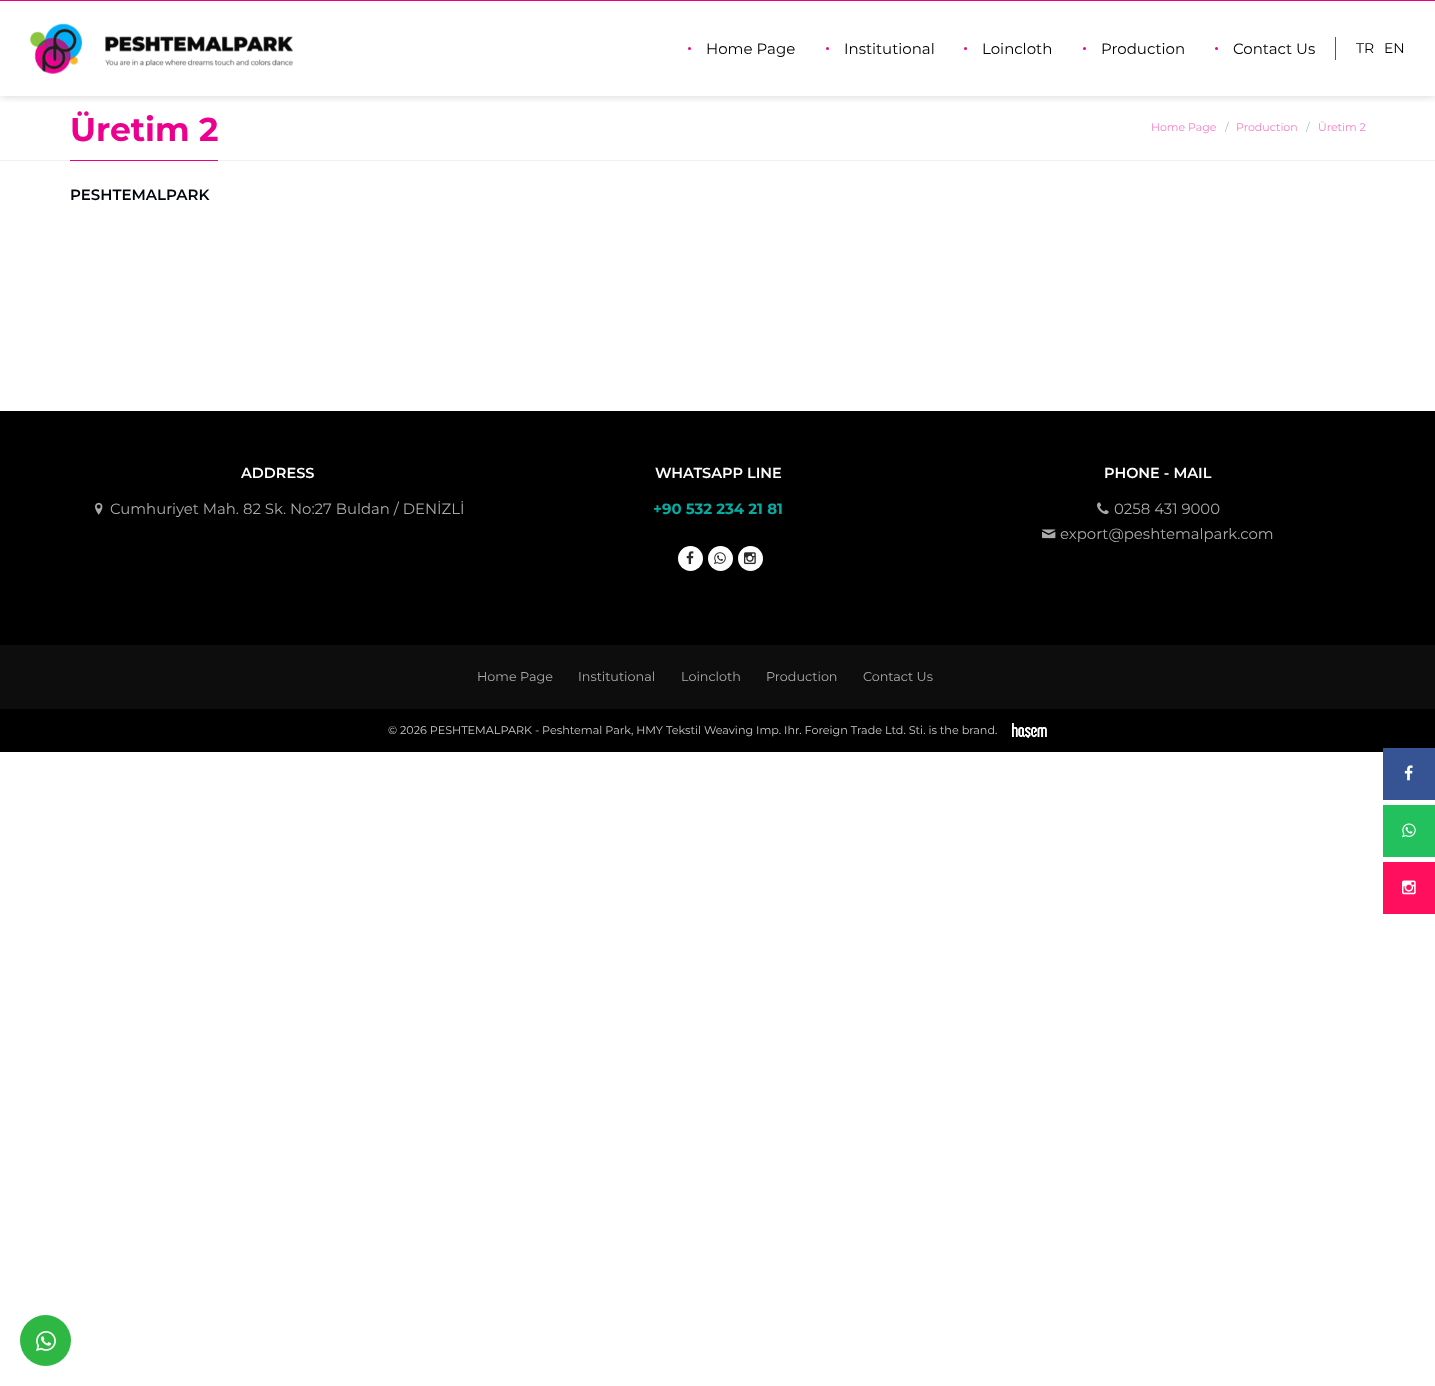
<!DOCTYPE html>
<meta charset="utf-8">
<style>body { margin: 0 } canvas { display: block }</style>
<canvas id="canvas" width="1435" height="1386"></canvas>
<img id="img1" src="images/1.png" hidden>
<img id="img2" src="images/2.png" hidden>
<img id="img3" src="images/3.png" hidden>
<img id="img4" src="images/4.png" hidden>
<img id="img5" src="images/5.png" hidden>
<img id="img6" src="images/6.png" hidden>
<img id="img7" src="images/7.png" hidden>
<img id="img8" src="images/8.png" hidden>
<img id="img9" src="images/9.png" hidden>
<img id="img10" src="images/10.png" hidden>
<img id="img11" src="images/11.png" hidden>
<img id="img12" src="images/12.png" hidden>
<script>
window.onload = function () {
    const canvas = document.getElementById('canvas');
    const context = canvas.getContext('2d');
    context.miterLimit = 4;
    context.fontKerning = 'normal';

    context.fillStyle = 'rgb(255, 255, 255)';
    context.fillRect(0, 0, 1435, 1386);
    context.save();
    context.beginPath();
    context.rect(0, 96, 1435, 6);
    context.clip();
    context.fillStyle = 'rgba(0, 0, 0, 0.18)';
    context.filter = 'blur(5px)';
    context.beginPath();
    context.rect(0, 0, 1435, 96);
    context.fill();
    context.filter = 'none';
    context.restore();
    context.fillStyle = 'rgb(236, 1, 142)';
    context.fillRect(0, 0, 1435, 1);
    context.drawImage(document.getElementById('img1'), 30, 23, 263, 51);
    context.beginPath();
    context.arc(689.5, 48.5, 1.5, 0, 2 * Math.PI);
    context.fill();
    context.beginPath();
    context.arc(827.5, 48.5, 1.5, 0, 2 * Math.PI);
    context.fill();
    context.beginPath();
    context.arc(965.5, 48.5, 1.5, 0, 2 * Math.PI);
    context.fill();
    context.beginPath();
    context.arc(1084.5, 48.5, 1.5, 0, 2 * Math.PI);
    context.fill();
    context.beginPath();
    context.arc(1216.5, 48.5, 1.5, 0, 2 * Math.PI);
    context.fill();
    context.fillRect(1335, 37, 1, 23);
    context.fillStyle = 'rgb(241, 241, 241)';
    context.fillRect(0, 160, 1435, 1);
    context.fillStyle = 'rgb(236, 1, 142)';
    context.fillRect(70, 160, 148, 1);
    context.fillStyle = 'rgb(0, 0, 0)';
    context.fillRect(0, 411, 1435, 341);
    context.drawImage(document.getElementById('img2'), 95, 502, 8, 13);
    context.fillStyle = 'rgb(255, 255, 255)';
    context.beginPath();
    context.arc(690.5, 558.5, 12.5, 0, 2 * Math.PI);
    context.fill();
    context.drawImage(document.getElementById('img3'), 686, 551, 8, 14);
    context.beginPath();
    context.arc(720.5, 558.5, 12.5, 0, 2 * Math.PI);
    context.fill();
    context.drawImage(document.getElementById('img4'), 714, 552, 12, 13);
    context.beginPath();
    context.arc(750.5, 558.5, 12.5, 0, 2 * Math.PI);
    context.fill();
    context.drawImage(document.getElementById('img5'), 744, 552, 12, 13);
    context.drawImage(document.getElementById('img6'), 1097, 502, 12, 13);
    context.drawImage(document.getElementById('img7'), 1042, 529, 14, 10);
    context.fillStyle = 'rgb(13, 13, 13)';
    context.fillRect(0, 645, 1435, 64);
    context.drawImage(document.getElementById('img8'), 1012, 723, 35, 15);
    context.fillStyle = 'rgb(54, 84, 147)';
    context.fillRect(1383, 748, 52, 52);
    context.drawImage(document.getElementById('img9'), 1404, 765, 9, 16);
    context.fillStyle = 'rgb(34, 193, 94)';
    context.fillRect(1383, 805, 52, 52);
    context.drawImage(document.getElementById('img10'), 1402, 823, 14, 15);
    context.fillStyle = 'rgb(255, 15, 93)';
    context.fillRect(1383, 862, 52, 52);
    context.drawImage(document.getElementById('img11'), 1402, 880, 14, 15);
    context.fillStyle = 'rgb(46, 184, 67)';
    context.beginPath();
    context.arc(45.5, 1340.5, 25.5, 0, 2 * Math.PI);
    context.fill();
    context.drawImage(document.getElementById('img12'), 36, 1331, 20, 20);
    context.font = '15px Montserrat';
    context.fillStyle = 'rgb(0, 0, 0)';
    context.fillText('Home Page', 706, 54);
    context.fillText('Institutional', 844, 54);
    context.fillText('Loincloth', 982, 54);
    context.fillText('Production', 1101, 54);
    context.fillText('Contact Us', 1233, 54);
    context.font = '14px Montserrat';
    context.fillText('TR', 1356, 53);
    context.fillText('EN', 1384, 53);
    context.font = 'bold 33px Montserrat';
    context.fillStyle = 'rgb(236, 1, 142)';
    context.fillText('Üretim 2', 70, 141);
    context.font = '11px Montserrat';
    context.fillStyle = 'rgb(246, 128, 199)';
    context.fillText('Home Page', 1151, 131);
    context.fillStyle = 'rgb(182, 186, 190)';
    context.fillText('/', 1225, 131);
    context.fillStyle = 'rgb(246, 128, 199)';
    context.fillText('Production', 1236, 131);
    context.fillStyle = 'rgb(182, 186, 190)';
    context.fillText('/', 1306, 131);
    context.fillStyle = 'rgb(246, 128, 199)';
    context.fillText('Üretim 2', 1318, 131);
    context.font = '600 15px Montserrat';
    context.fillStyle = 'rgb(0, 5, 11)';
    context.fillText('PESHTEMALPARK', 70, 200);
    context.font = '600 14.5px Montserrat';
    context.fillStyle = 'rgb(255, 255, 255)';
    context.fillText('ADDRESS', 241, 478);
    context.font = '14.9px Montserrat';
    context.fillStyle = 'rgb(170, 170, 170)';
    context.fillText('Cumhuriyet Mah. 82 Sk. No:27 Buldan / DENİZLİ', 110, 514);
    context.font = '600 14.5px Montserrat';
    context.fillStyle = 'rgb(255, 255, 255)';
    context.fillText('WHATSAPP LINE', 655, 478);
    context.font = 'bold 14.9px Montserrat';
    context.fillStyle = 'rgb(6, 172, 163)';
    context.fillText('+90 532 234 21 81', 653, 514);
    context.font = '600 14.5px Montserrat';
    context.fillStyle = 'rgb(255, 255, 255)';
    context.fillText('PHONE - MAIL', 1104, 478);
    context.font = '14.9px Montserrat';
    context.fillStyle = 'rgb(170, 170, 170)';
    context.fillText('0258 431 9000', 1114, 514);
    context.fillText('export@peshtemalpark.com', 1060, 539);
    context.font = '12.75px Montserrat';
    context.fillText('Home Page', 477, 681);
    context.fillText('Institutional', 578, 681);
    context.fillText('Loincloth', 681, 681);
    context.fillText('Production', 766, 681);
    context.fillText('Contact Us', 863, 681);
    context.font = '11.2px Montserrat';
    context.fillStyle = 'rgb(204, 204, 204)';
    context.fillText('© 2026 PESHTEMALPARK - Peshtemal Park, HMY Tekstil Weaving Imp. Ihr. Foreign Trade Ltd. Sti. is the brand.', 388, 734);
};
</script>
